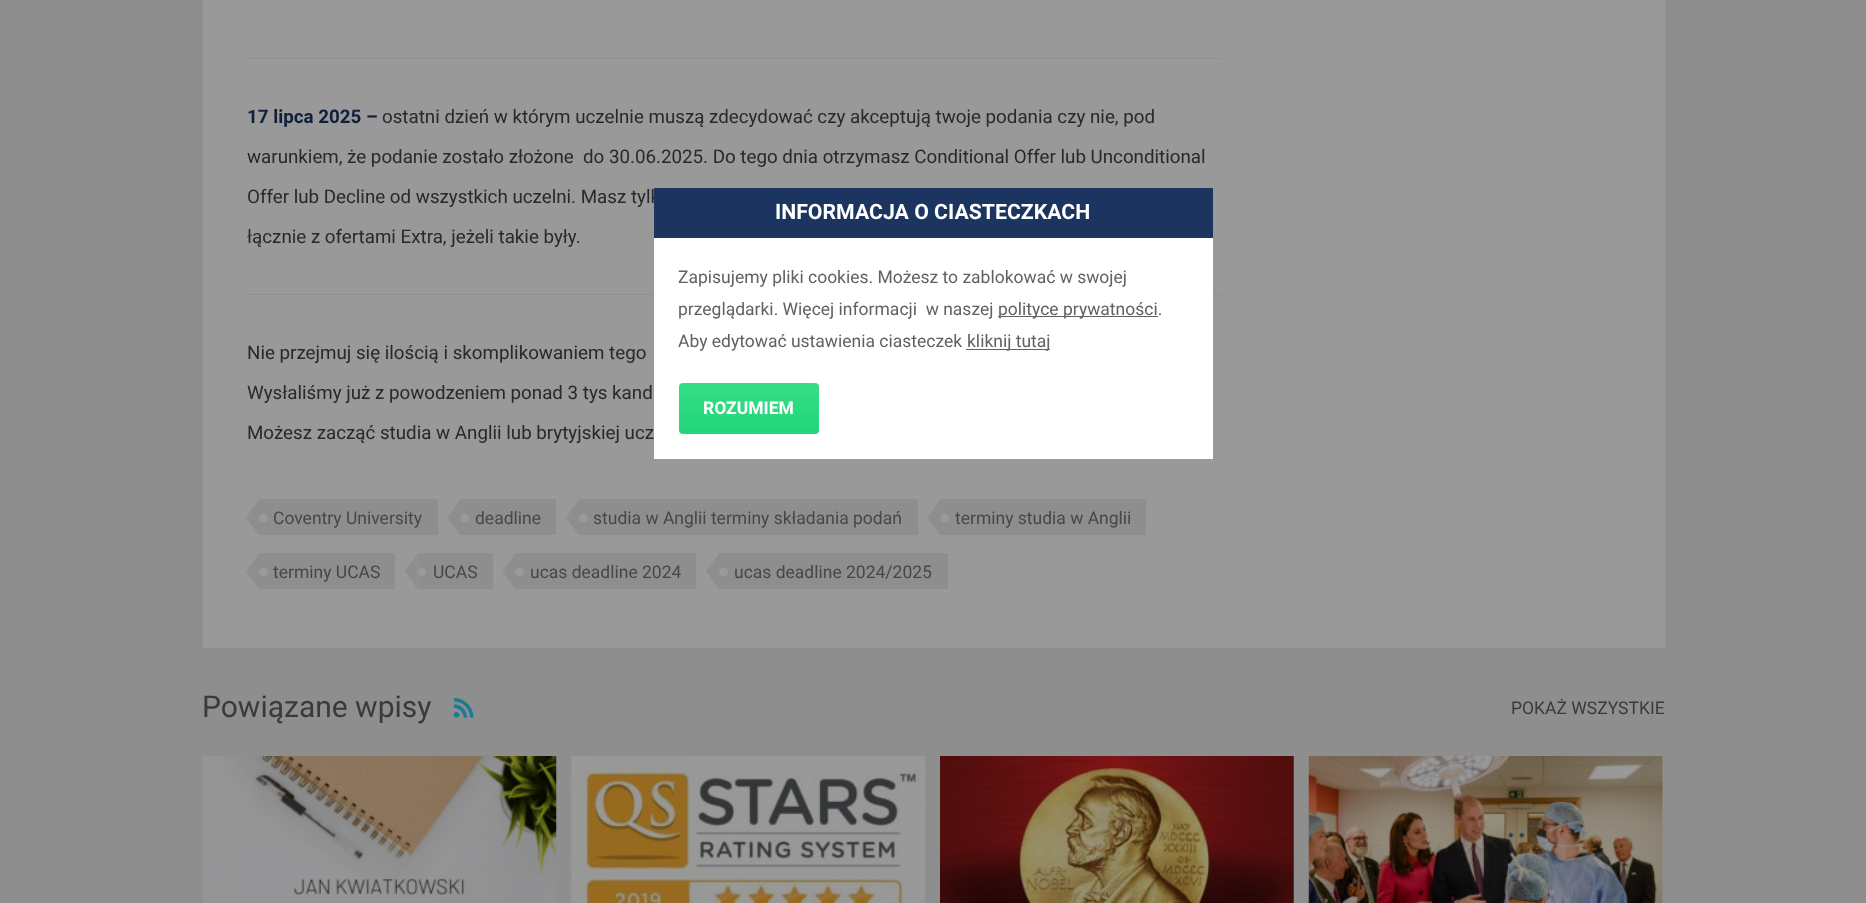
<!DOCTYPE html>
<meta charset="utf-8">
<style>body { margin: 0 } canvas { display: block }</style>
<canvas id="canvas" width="1866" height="903"></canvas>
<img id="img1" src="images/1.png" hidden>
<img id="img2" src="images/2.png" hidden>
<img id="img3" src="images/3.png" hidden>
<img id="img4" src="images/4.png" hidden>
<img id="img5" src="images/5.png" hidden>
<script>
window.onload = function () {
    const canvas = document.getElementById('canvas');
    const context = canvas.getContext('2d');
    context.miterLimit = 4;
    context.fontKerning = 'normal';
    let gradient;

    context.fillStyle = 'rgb(142, 142, 142)';
    context.fillRect(0, 0, 1866, 903);
    context.fillStyle = 'rgb(153, 153, 153)';
    context.fillRect(203, 0, 1462, 648);
    context.fillStyle = 'rgb(143, 143, 143)';
    context.fillRect(248, 58, 972, 1);
    context.fillRect(248, 294, 972, 1);
    context.fillStyle = 'rgb(142, 142, 142)';
    context.fillRect(259, 499, 179, 36);
    context.beginPath();
    context.moveTo(259, 500);
    context.lineTo(259, 535);
    context.lineTo(246, 517.5);
    context.closePath();
    context.fill();
    context.fillStyle = 'rgb(153, 153, 153)';
    context.beginPath();
    context.arc(263.5, 518.5, 4.5, 0, 2 * Math.PI);
    context.fill();
    context.fillStyle = 'rgb(142, 142, 142)';
    context.fillRect(460, 499, 96, 36);
    context.beginPath();
    context.moveTo(460, 500);
    context.lineTo(460, 535);
    context.lineTo(447.5, 517.5);
    context.closePath();
    context.fill();
    context.fillStyle = 'rgb(153, 153, 153)';
    context.beginPath();
    context.arc(464.5, 518.5, 4.5, 0, 2 * Math.PI);
    context.fill();
    context.fillStyle = 'rgb(142, 142, 142)';
    context.fillRect(579, 499, 339, 36);
    context.beginPath();
    context.moveTo(579, 500);
    context.lineTo(579, 535);
    context.lineTo(566, 517.5);
    context.closePath();
    context.fill();
    context.fillStyle = 'rgb(153, 153, 153)';
    context.beginPath();
    context.arc(583.5, 518.5, 4.5, 0, 2 * Math.PI);
    context.fill();
    context.fillStyle = 'rgb(142, 142, 142)';
    context.fillRect(940, 499, 206, 36);
    context.beginPath();
    context.moveTo(940, 500);
    context.lineTo(940, 535);
    context.lineTo(927.5, 517.5);
    context.closePath();
    context.fill();
    context.fillStyle = 'rgb(153, 153, 153)';
    context.beginPath();
    context.arc(944.5, 518.5, 4.5, 0, 2 * Math.PI);
    context.fill();
    context.fillStyle = 'rgb(142, 142, 142)';
    context.fillRect(259, 553, 136, 36);
    context.beginPath();
    context.moveTo(259, 554);
    context.lineTo(259, 589);
    context.lineTo(246, 571);
    context.closePath();
    context.fill();
    context.fillStyle = 'rgb(153, 153, 153)';
    context.beginPath();
    context.roundRect(259, 568, 9, 8, 4);
    context.fill();
    context.fillStyle = 'rgb(142, 142, 142)';
    context.fillRect(418, 553, 75, 36);
    context.beginPath();
    context.moveTo(417.5, 554);
    context.lineTo(417.5, 589);
    context.lineTo(405, 571);
    context.closePath();
    context.fill();
    context.fillStyle = 'rgb(153, 153, 153)';
    context.beginPath();
    context.arc(422, 572, 4, 0, 2 * Math.PI);
    context.fill();
    context.fillStyle = 'rgb(142, 142, 142)';
    context.fillRect(515, 553, 181, 36);
    context.beginPath();
    context.moveTo(515, 554);
    context.lineTo(515, 589);
    context.lineTo(502.5, 571);
    context.closePath();
    context.fill();
    context.fillStyle = 'rgb(153, 153, 153)';
    context.beginPath();
    context.roundRect(515, 568, 9, 8, 4);
    context.fill();
    context.fillStyle = 'rgb(142, 142, 142)';
    context.fillRect(719, 553, 229, 36);
    context.beginPath();
    context.moveTo(719, 554);
    context.lineTo(719, 589);
    context.lineTo(706, 571);
    context.closePath();
    context.fill();
    context.fillStyle = 'rgb(153, 153, 153)';
    context.beginPath();
    context.roundRect(719, 568, 9, 8, 4);
    context.fill();
    context.drawImage(document.getElementById('img1'), 453, 698, 21, 20);
    context.drawImage(document.getElementById('img2'), 202, 756, 355, 147);
    context.drawImage(document.getElementById('img3'), 571, 756, 354, 147);
    context.drawImage(document.getElementById('img4'), 940, 756, 354, 147);
    context.drawImage(document.getElementById('img5'), 1308, 756, 355, 147);
    context.fillStyle = 'rgb(255, 255, 255)';
    context.fillRect(654, 238, 559, 221);
    context.fillStyle = 'rgb(96, 97, 98)';
    context.fillRect(998, 316, 160, 1);
    context.fillRect(966, 349, 84, 1);
    gradient = context.createLinearGradient(749, 383, 749, 434);
    gradient.addColorStop(0, 'rgb(53, 222, 134)');
    gradient.addColorStop(1, 'rgb(35, 214, 121)');
    context.fillStyle = gradient;
    context.beginPath();
    context.roundRect(679, 383, 140, 51, 4);
    context.fill();
    context.font = 'bold 18.75px Roboto';
    context.fillStyle = 'rgb(16, 32, 58)';
    context.fillText('17 lipca 2025 –', 247, 123);
    context.font = '18.75px Roboto';
    context.fillStyle = 'rgb(41, 41, 41)';
    context.fillText('ostatni dzień w którym uczelnie muszą zdecydować czy akceptują twoje podania czy nie, pod', 382, 123);
    context.fillText('warunkiem, że podanie zostało złożone  do 30.06.2025. Do tego dnia otrzymasz Conditional Offer lub Unconditional', 247, 163);
    context.fillText('Offer lub Decline od wszystkich uczelni. Masz tylk', 247, 203);
    context.fillText('łącznie z ofertami Extra, jeżeli takie były.', 247, 243);
    context.fillText('Nie przejmuj się ilością i skomplikowaniem tego', 247, 359);
    context.fillText('Wysłaliśmy już z powodzeniem ponad 3 tys kand', 247, 399);
    context.fillText('Możesz zacząć studia w Anglii lub brytyjskiej ucz', 247, 439);
    context.font = '17.5px Roboto';
    context.fillStyle = 'rgb(71, 71, 71)';
    context.fillText('Coventry University', 273, 524);
    context.fillText('deadline', 475, 524);
    context.fillText('studia w Anglii terminy składania podań', 593, 524);
    context.fillText('terminy studia w Anglii', 955, 524);
    context.fillText('terminy UCAS', 273, 578);
    context.fillText('UCAS', 433, 578);
    context.fillText('ucas deadline 2024', 530, 578);
    context.fillText('ucas deadline 2024/2025', 734, 578);
    context.font = '30px Roboto';
    context.fillStyle = 'rgb(58, 58, 59)';
    context.fillText('Powiązane wpisy', 202, 717);
    context.font = '17.5px Roboto';
    context.fillText('POKAŻ WSZYSTKIE', 1511, 714);
    context.fillStyle = 'rgb(27, 53, 96)';
    context.fillRect(654, 188, 559, 50);
    context.font = 'bold 21.25px Roboto';
    context.fillStyle = 'rgb(255, 255, 255)';
    context.fillText('INFORMACJA O CIASTECZKACH', 775, 219);
    context.font = '17.5px Roboto';
    context.fillStyle = 'rgb(96, 97, 98)';
    context.fillText('Zapisujemy pliki cookies. Możesz to zablokować w swojej', 678, 283);
    context.fillText('przeglądarki. Więcej informacji  w naszej', 678, 315);
    context.fillText('polityce prywatności.', 998, 315);
    context.fillText('Aby edytować ustawienia ciasteczek', 678, 347);
    context.fillText('kliknij tutaj', 967, 347);
    context.font = 'bold 17.5px Roboto';
    context.fillStyle = 'rgb(255, 255, 255)';
    context.fillText('ROZUMIEM', 703, 414);
};
</script>
